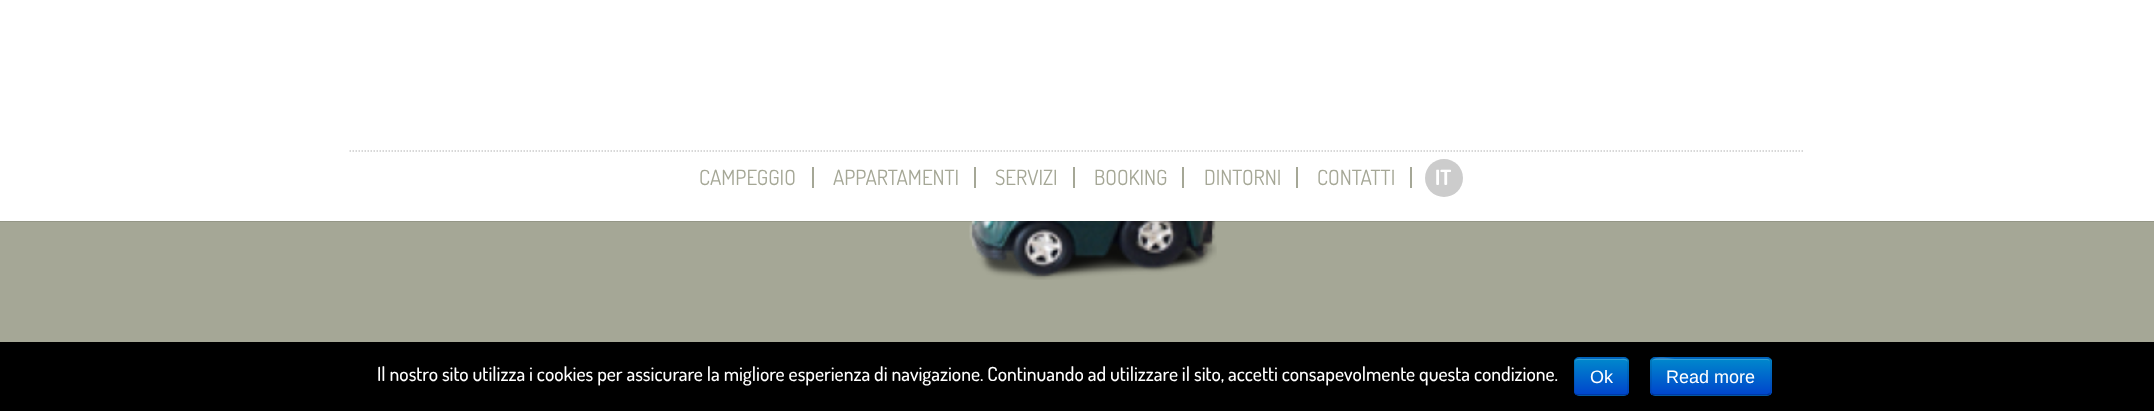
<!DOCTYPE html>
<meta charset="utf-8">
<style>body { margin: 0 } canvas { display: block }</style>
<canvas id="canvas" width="2154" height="411"></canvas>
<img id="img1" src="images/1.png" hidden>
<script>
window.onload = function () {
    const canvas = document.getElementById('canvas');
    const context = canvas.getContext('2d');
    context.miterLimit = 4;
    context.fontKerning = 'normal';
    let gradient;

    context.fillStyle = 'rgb(165, 167, 150)';
    context.fillRect(0, 0, 2154, 411);
    context.drawImage(document.getElementById('img1'), 969, 221, 248, 59);
    context.fillStyle = 'rgba(0, 0, 0, 0.1)';
    context.fillRect(0, 221, 2154, 1);
    context.fillStyle = 'rgb(255, 255, 255)';
    context.fillRect(0, 0, 2154, 221);
    context.beginPath();
    context.moveTo(349.5, 151);
    context.lineTo(1804.5, 151);
    context.strokeStyle = 'rgb(204, 204, 204)';
    context.lineWidth = 1.5;
    context.setLineDash([1.5, 1.5]);
    context.stroke();
    context.fillStyle = 'rgb(165, 167, 150)';
    context.fillRect(812, 167, 2, 21);
    context.fillRect(974, 167, 2, 21);
    context.fillRect(1073, 167, 2, 21);
    context.fillRect(1182, 167, 2, 21);
    context.fillRect(1296, 167, 2, 21);
    context.fillRect(1410, 167, 2, 21);
    context.fillStyle = 'rgb(204, 204, 204)';
    context.beginPath();
    context.arc(1444, 178, 19, 0, 2 * Math.PI);
    context.fill();
    context.fillStyle = 'rgb(0, 0, 0)';
    context.fillRect(0, 342, 2154, 69);
    context.fillStyle = 'rgb(0, 109, 204)';
    context.beginPath();
    context.roundRect(1574, 357, 55, 39, 5);
    context.fill();
    context.save();
    context.beginPath();
    context.roundRect(1574, 357, 55, 39, 5);
    context.clip();
    gradient = context.createLinearGradient(1601, 359, 1601, 395);
    gradient.addColorStop(0, 'rgb(0, 136, 204)');
    gradient.addColorStop(1, 'rgb(0, 68, 204)');
    context.fillStyle = gradient;
    context.fillRect(1574, 359, 55, 36);
    context.restore();
    context.fillStyle = 'rgb(51, 159, 214)';
    context.beginPath();
    context.moveTo(1578, 360);
    context.lineTo(1624, 360);
    context.bezierCurveTo(1626, 360, 1628, 361, 1628, 363);
    context.bezierCurveTo(1628, 357, 1622, 359, 1617, 359);
    context.lineTo(1586, 359);
    context.bezierCurveTo(1581, 359, 1575, 357, 1575, 363);
    context.bezierCurveTo(1575, 361, 1576, 360, 1578, 360);
    context.closePath();
    context.fill();
    context.beginPath();
    context.moveTo(1627, 394);
    context.bezierCurveTo(1626.5, 395, 1625.5, 395, 1624.5, 395);
    context.lineTo(1578, 395);
    context.bezierCurveTo(1577, 395, 1576, 395, 1575.5, 394);
    context.strokeStyle = 'rgba(0, 0, 0, 0.25)';
    context.setLineDash([]);
    context.stroke();
    context.beginPath();
    context.moveTo(1575.5, 394);
    context.bezierCurveTo(1574.5, 393.5, 1574, 392.5, 1574, 391.5);
    context.lineTo(1574, 361.5);
    context.bezierCurveTo(1574, 360.5, 1574.5, 359.5, 1575.5, 359);
    context.bezierCurveTo(1576, 358, 1577, 358, 1578, 358);
    context.lineTo(1624.5, 358);
    context.bezierCurveTo(1625.5, 358, 1626.5, 358, 1627, 359);
    context.bezierCurveTo(1628, 359.5, 1628, 360.5, 1628, 361.5);
    context.lineTo(1628, 391.5);
    context.bezierCurveTo(1628, 392.5, 1628, 393.5, 1627, 394);
    context.strokeStyle = 'rgba(0, 0, 0, 0.1)';
    context.stroke();
    context.fillStyle = 'rgb(0, 109, 204)';
    context.beginPath();
    context.roundRect(1650, 357, 122, 39, 5);
    context.fill();
    context.save();
    context.beginPath();
    context.roundRect(1650, 357, 122, 39, 5);
    context.clip();
    gradient = context.createLinearGradient(1711, 359, 1711, 395);
    gradient.addColorStop(0, 'rgb(0, 136, 204)');
    gradient.addColorStop(1, 'rgb(0, 68, 204)');
    context.fillStyle = gradient;
    context.fillRect(1650, 359, 122, 36);
    context.restore();
    context.fillStyle = 'rgba(255, 255, 255, 0.2)';
    context.beginPath();
    context.moveTo(1654, 360);
    context.lineTo(1767, 360);
    context.bezierCurveTo(1769, 360, 1770, 361, 1770, 363);
    context.bezierCurveTo(1770, 361, 1769, 359, 1767, 359);
    context.lineTo(1674, 359);
    context.bezierCurveTo(1672, 359, 1652, 354, 1652, 363);
    context.bezierCurveTo(1652, 361, 1653, 360, 1654, 360);
    context.closePath();
    context.fill();
    context.beginPath();
    context.moveTo(1769.5, 394);
    context.lineTo(1767, 395);
    context.lineTo(1654, 395);
    context.lineTo(1652, 394);
    context.strokeStyle = 'rgba(0, 0, 0, 0.25)';
    context.stroke();
    context.beginPath();
    context.moveTo(1652, 394);
    context.bezierCurveTo(1649.5, 391.5, 1651, 384, 1651, 381.5);
    context.lineTo(1651, 366.5);
    context.bezierCurveTo(1651, 363.5, 1650, 358, 1654.5, 358);
    context.lineTo(1748, 358);
    context.bezierCurveTo(1774, 358, 1771, 353, 1771, 376.5);
    context.lineTo(1771, 386.5);
    context.bezierCurveTo(1771, 388.5, 1771.5, 392.5, 1769.5, 394);
    context.strokeStyle = 'rgba(0, 0, 0, 0.1)';
    context.stroke();
    context.font = '21px Dosis';
    context.fillStyle = 'rgb(165, 167, 150)';
    context.fillText('CAMPEGGIO', 699, 185);
    context.fillText('APPARTAMENTI', 833, 185);
    context.fillText('SERVIZI', 995, 185);
    context.fillText('BOOKING', 1094, 185);
    context.fillText('DINTORNI', 1204, 185);
    context.fillText('CONTATTI', 1317, 185);
    context.font = 'bold 21px Dosis';
    context.fillStyle = 'rgb(255, 255, 255)';
    context.fillText('IT', 1435, 185);
    context.font = '500 19.5px Dosis';
    context.fillText('Il nostro sito utilizza i cookies per assicurare la migliore esperienza di navigazione. Continuando ad utilizzare il sito, accetti consapevolmente questa condizione.', 377, 381);
    context.font = '18px Liberation Sans';
    context.fillText('Ok', 1590, 383);
    context.fillText('Read more', 1666, 383);
};
</script>
